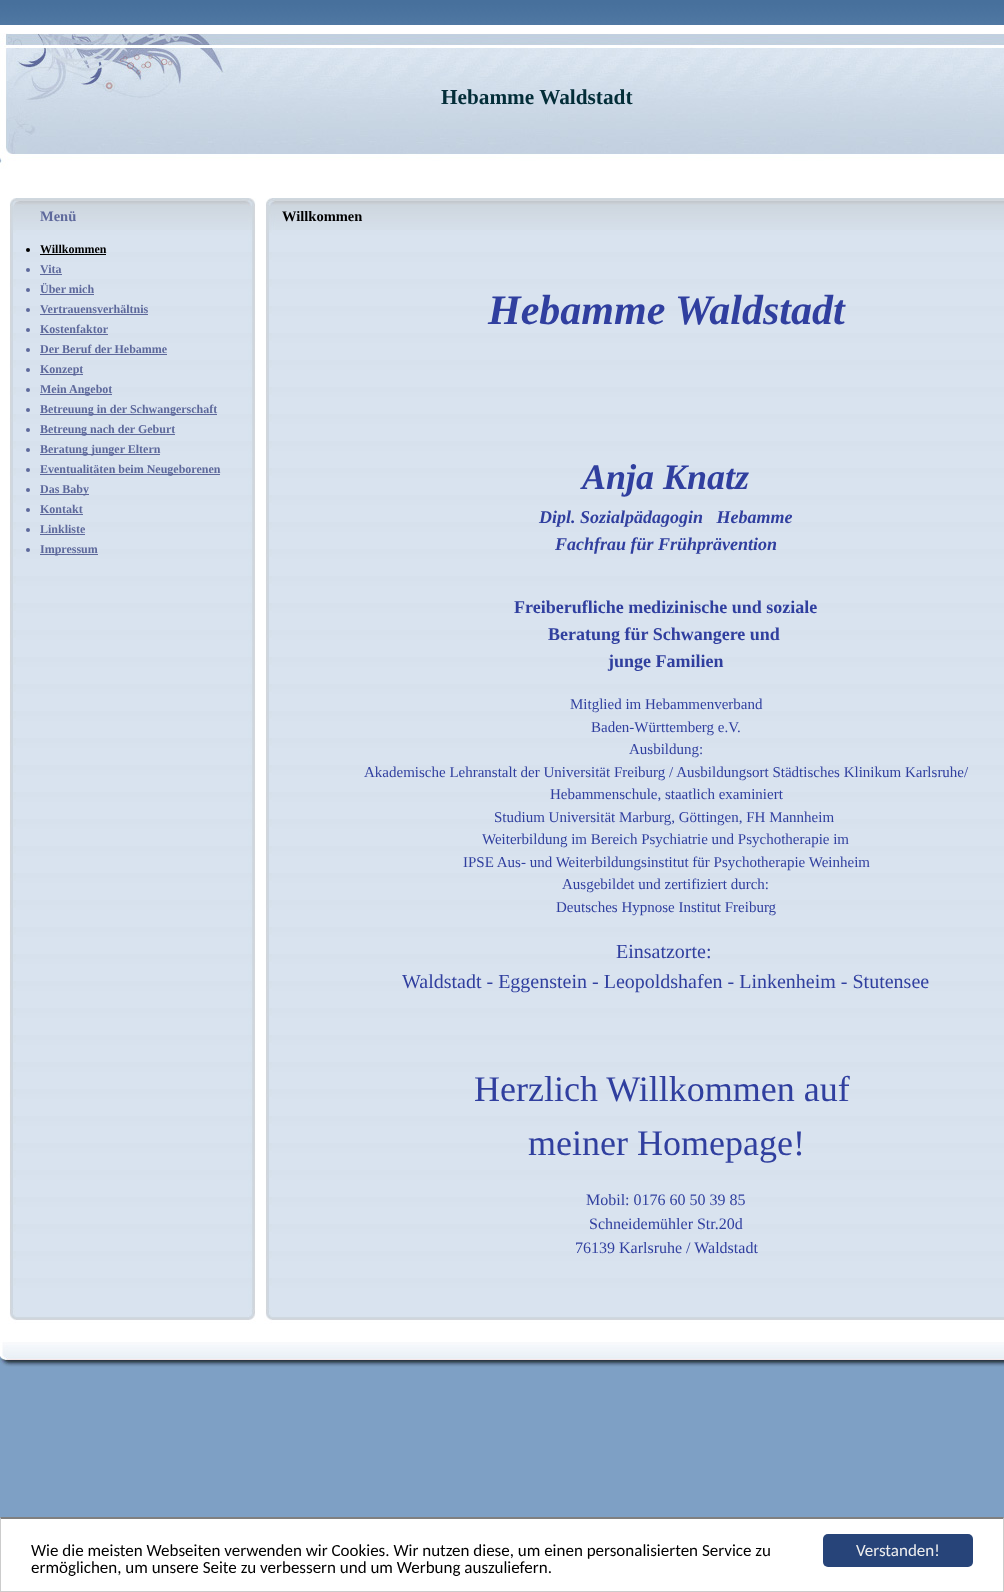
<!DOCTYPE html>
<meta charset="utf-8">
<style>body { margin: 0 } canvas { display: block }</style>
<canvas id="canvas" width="1004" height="1592"></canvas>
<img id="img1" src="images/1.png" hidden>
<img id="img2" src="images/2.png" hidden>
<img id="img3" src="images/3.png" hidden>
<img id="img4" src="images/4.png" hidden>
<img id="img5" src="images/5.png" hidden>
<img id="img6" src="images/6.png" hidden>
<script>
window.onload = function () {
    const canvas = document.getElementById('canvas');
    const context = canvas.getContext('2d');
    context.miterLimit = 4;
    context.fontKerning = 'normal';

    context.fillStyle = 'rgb(126, 160, 197)';
    context.fillRect(0, 0, 1004, 1592);
    context.drawImage(document.getElementById('img1'), 0, 0, 1004, 25);
    context.drawImage(document.getElementById('img2'), 0, 25, 1004, 173);
    context.drawImage(document.getElementById('img3'), 0, 198, 1004, 1102);
    context.drawImage(document.getElementById('img4'), 10, 198, 245, 32);
    context.fillStyle = 'rgb(0, 0, 0)';
    context.beginPath();
    context.arc(28, 250, 2, 0, 2 * Math.PI);
    context.fill();
    context.fillRect(40, 254, 66, 1);
    context.fillStyle = 'rgb(94, 105, 156)';
    context.beginPath();
    context.arc(28, 270, 2, 0, 2 * Math.PI);
    context.fill();
    context.fillRect(40, 274, 22, 1);
    context.beginPath();
    context.arc(28, 290, 2, 0, 2 * Math.PI);
    context.fill();
    context.fillRect(40, 294, 54, 1);
    context.beginPath();
    context.arc(28, 310, 2, 0, 2 * Math.PI);
    context.fill();
    context.fillRect(40, 314, 108, 1);
    context.beginPath();
    context.arc(28, 330, 2, 0, 2 * Math.PI);
    context.fill();
    context.fillRect(40, 334, 68, 1);
    context.beginPath();
    context.arc(28, 350, 2, 0, 2 * Math.PI);
    context.fill();
    context.fillRect(40, 354, 127, 1);
    context.beginPath();
    context.arc(28, 370, 2, 0, 2 * Math.PI);
    context.fill();
    context.fillRect(40, 374, 43, 1);
    context.beginPath();
    context.arc(28, 390, 2, 0, 2 * Math.PI);
    context.fill();
    context.fillRect(40, 394, 72, 1);
    context.beginPath();
    context.arc(28, 410, 2, 0, 2 * Math.PI);
    context.fill();
    context.fillRect(40, 414, 177, 1);
    context.beginPath();
    context.arc(28, 430, 2, 0, 2 * Math.PI);
    context.fill();
    context.fillRect(40, 434, 135, 1);
    context.beginPath();
    context.arc(28, 450, 2, 0, 2 * Math.PI);
    context.fill();
    context.fillRect(40, 454, 120, 1);
    context.beginPath();
    context.arc(28, 470, 2, 0, 2 * Math.PI);
    context.fill();
    context.fillRect(40, 474, 180, 1);
    context.beginPath();
    context.arc(28, 490, 2, 0, 2 * Math.PI);
    context.fill();
    context.fillRect(40, 494, 49, 1);
    context.beginPath();
    context.arc(28, 510, 2, 0, 2 * Math.PI);
    context.fill();
    context.fillRect(40, 514, 43, 1);
    context.beginPath();
    context.arc(28, 530, 2, 0, 2 * Math.PI);
    context.fill();
    context.fillRect(40, 534, 45, 1);
    context.beginPath();
    context.arc(28, 550, 2, 0, 2 * Math.PI);
    context.fill();
    context.fillRect(40, 554, 58, 1);
    context.drawImage(document.getElementById('img5'), 266, 198, 738, 32);
    context.drawImage(document.getElementById('img6'), 0, 1300, 1004, 67);
    context.fillStyle = 'rgb(255, 255, 255)';
    context.fillRect(1, 1519, 1002, 72);
    context.fillStyle = 'rgb(128, 128, 128)';
    context.beginPath();
    context.moveTo(0, 1517);
    context.lineTo(1004, 1517);
    context.lineTo(1003, 1519);
    context.lineTo(1, 1519);
    context.closePath();
    context.fill();
    context.fillStyle = 'rgb(204, 204, 204)';
    context.beginPath();
    context.moveTo(1004, 1517);
    context.lineTo(1004, 1592);
    context.lineTo(1003, 1591);
    context.lineTo(1003, 1519);
    context.closePath();
    context.fill();
    context.fillRect(0, 1591, 1004, 1);
    context.beginPath();
    context.moveTo(0, 1592);
    context.lineTo(0, 1517);
    context.lineTo(1, 1519);
    context.lineTo(1, 1591);
    context.closePath();
    context.fill();
    context.fillStyle = 'rgb(39, 68, 121)';
    context.beginPath();
    context.roundRect(823, 1534, 150, 33, 5);
    context.fill();
    context.font = 'bold 21.25px Liberation Serif';
    context.fillStyle = 'rgb(3, 45, 56)';
    context.fillText('Hebamme Waldstadt', 441, 104);
    context.font = 'bold 14.5px Liberation Serif';
    context.fillStyle = 'rgb(94, 105, 156)';
    context.fillText('Menü', 40, 221);
    context.font = 'bold 12px Liberation Serif';
    context.fillStyle = 'rgb(0, 0, 0)';
    context.fillText('Willkommen', 40, 253);
    context.fillStyle = 'rgb(94, 105, 156)';
    context.fillText('Vita', 40, 273);
    context.fillText('Über mich', 40, 293);
    context.fillText('Vertrauensverhältnis', 40, 313);
    context.fillText('Kostenfaktor', 40, 333);
    context.fillText('Der Beruf der Hebamme', 40, 353);
    context.fillText('Konzept', 40, 373);
    context.fillText('Mein Angebot', 40, 393);
    context.fillText('Betreuung in der Schwangerschaft', 40, 413);
    context.fillText('Betreung nach der Geburt', 40, 433);
    context.fillText('Beratung junger Eltern', 40, 453);
    context.fillText('Eventualitäten beim Neugeborenen', 40, 473);
    context.fillText('Das Baby', 40, 493);
    context.fillText('Kontakt', 40, 513);
    context.fillText('Linkliste', 40, 533);
    context.fillText('Impressum', 40, 553);
    context.font = 'bold 14.5px Liberation Serif';
    context.fillStyle = 'rgb(0, 0, 0)';
    context.fillText('Willkommen', 282, 221);
    context.font = 'italic bold 42px Liberation Serif';
    context.fillStyle = 'rgb(48, 63, 159)';
    context.fillText('Hebamme Waldstadt', 488, 324);
    context.font = 'italic bold 36px Liberation Serif';
    context.fillText('Anja Knatz', 582, 489);
    context.font = 'italic bold 18px Liberation Serif';
    context.fillText('Dipl. Sozialpädagogin   Hebamme', 539, 523);
    context.fillText('Fachfrau für Frühprävention', 555, 550);
    context.font = 'bold 18px Liberation Serif';
    context.fillText('Freiberufliche medizinische und soziale', 514, 613);
    context.fillText('Beratung für Schwangere und', 548, 640);
    context.fillText('junge Familien', 608, 667);
    context.font = '15px Liberation Serif';
    context.fillText('Mitglied im Hebammenverband', 570, 709);
    context.fillText('Baden-Württemberg e.V.', 591, 732);
    context.fillText('Ausbildung:', 629, 754);
    context.fillText('Akademische Lehranstalt der Universität Freiburg / Ausbildungsort Städtisches Klinikum Karlsruhe/', 364, 777);
    context.fillText('Hebammenschule, staatlich examiniert', 550, 799);
    context.fillText('Studium Universität Marburg, Göttingen, FH Mannheim', 494, 822);
    context.fillText('Weiterbildung im Bereich Psychiatrie und Psychotherapie im', 482, 844);
    context.fillText('IPSE Aus- und Weiterbildungsinstitut für Psychotherapie Weinheim', 463, 867);
    context.fillText('Ausgebildet und zertifiziert durch:', 562, 889);
    context.fillText('Deutsches Hypnose Institut Freiburg', 556, 912);
    context.font = '20px Liberation Serif';
    context.fillText('Einsatzorte:', 616, 958);
    context.fillText('Waldstadt - Eggenstein - Leopoldshafen - Linkenheim - Stutensee', 402, 988);
    context.font = '36px Liberation Serif';
    context.fillText('Herzlich Willkommen auf', 474, 1101);
    context.fillText('meiner Homepage!', 528, 1155);
    context.font = '16px Liberation Serif';
    context.fillText('Mobil: 0176 60 50 39 85', 586, 1205);
    context.fillText('Schneidemühler Str.20d', 589, 1229);
    context.fillText('76139 Karlsruhe / Waldstadt', 575, 1253);
    context.font = '17px Carlito';
    context.fillStyle = 'rgb(0, 0, 0)';
    context.fillText('Wie die meisten Webseiten verwenden wir Cookies. Wir nutzen diese, um einen personalisierten Service zu', 31, 1556);
    context.fillText('ermöglichen, um unsere Seite zu verbessern und um Werbung auszuliefern.', 31, 1573);
    context.fillStyle = 'rgb(238, 238, 238)';
    context.fillText('Verstanden!', 856, 1556);
};
</script>
